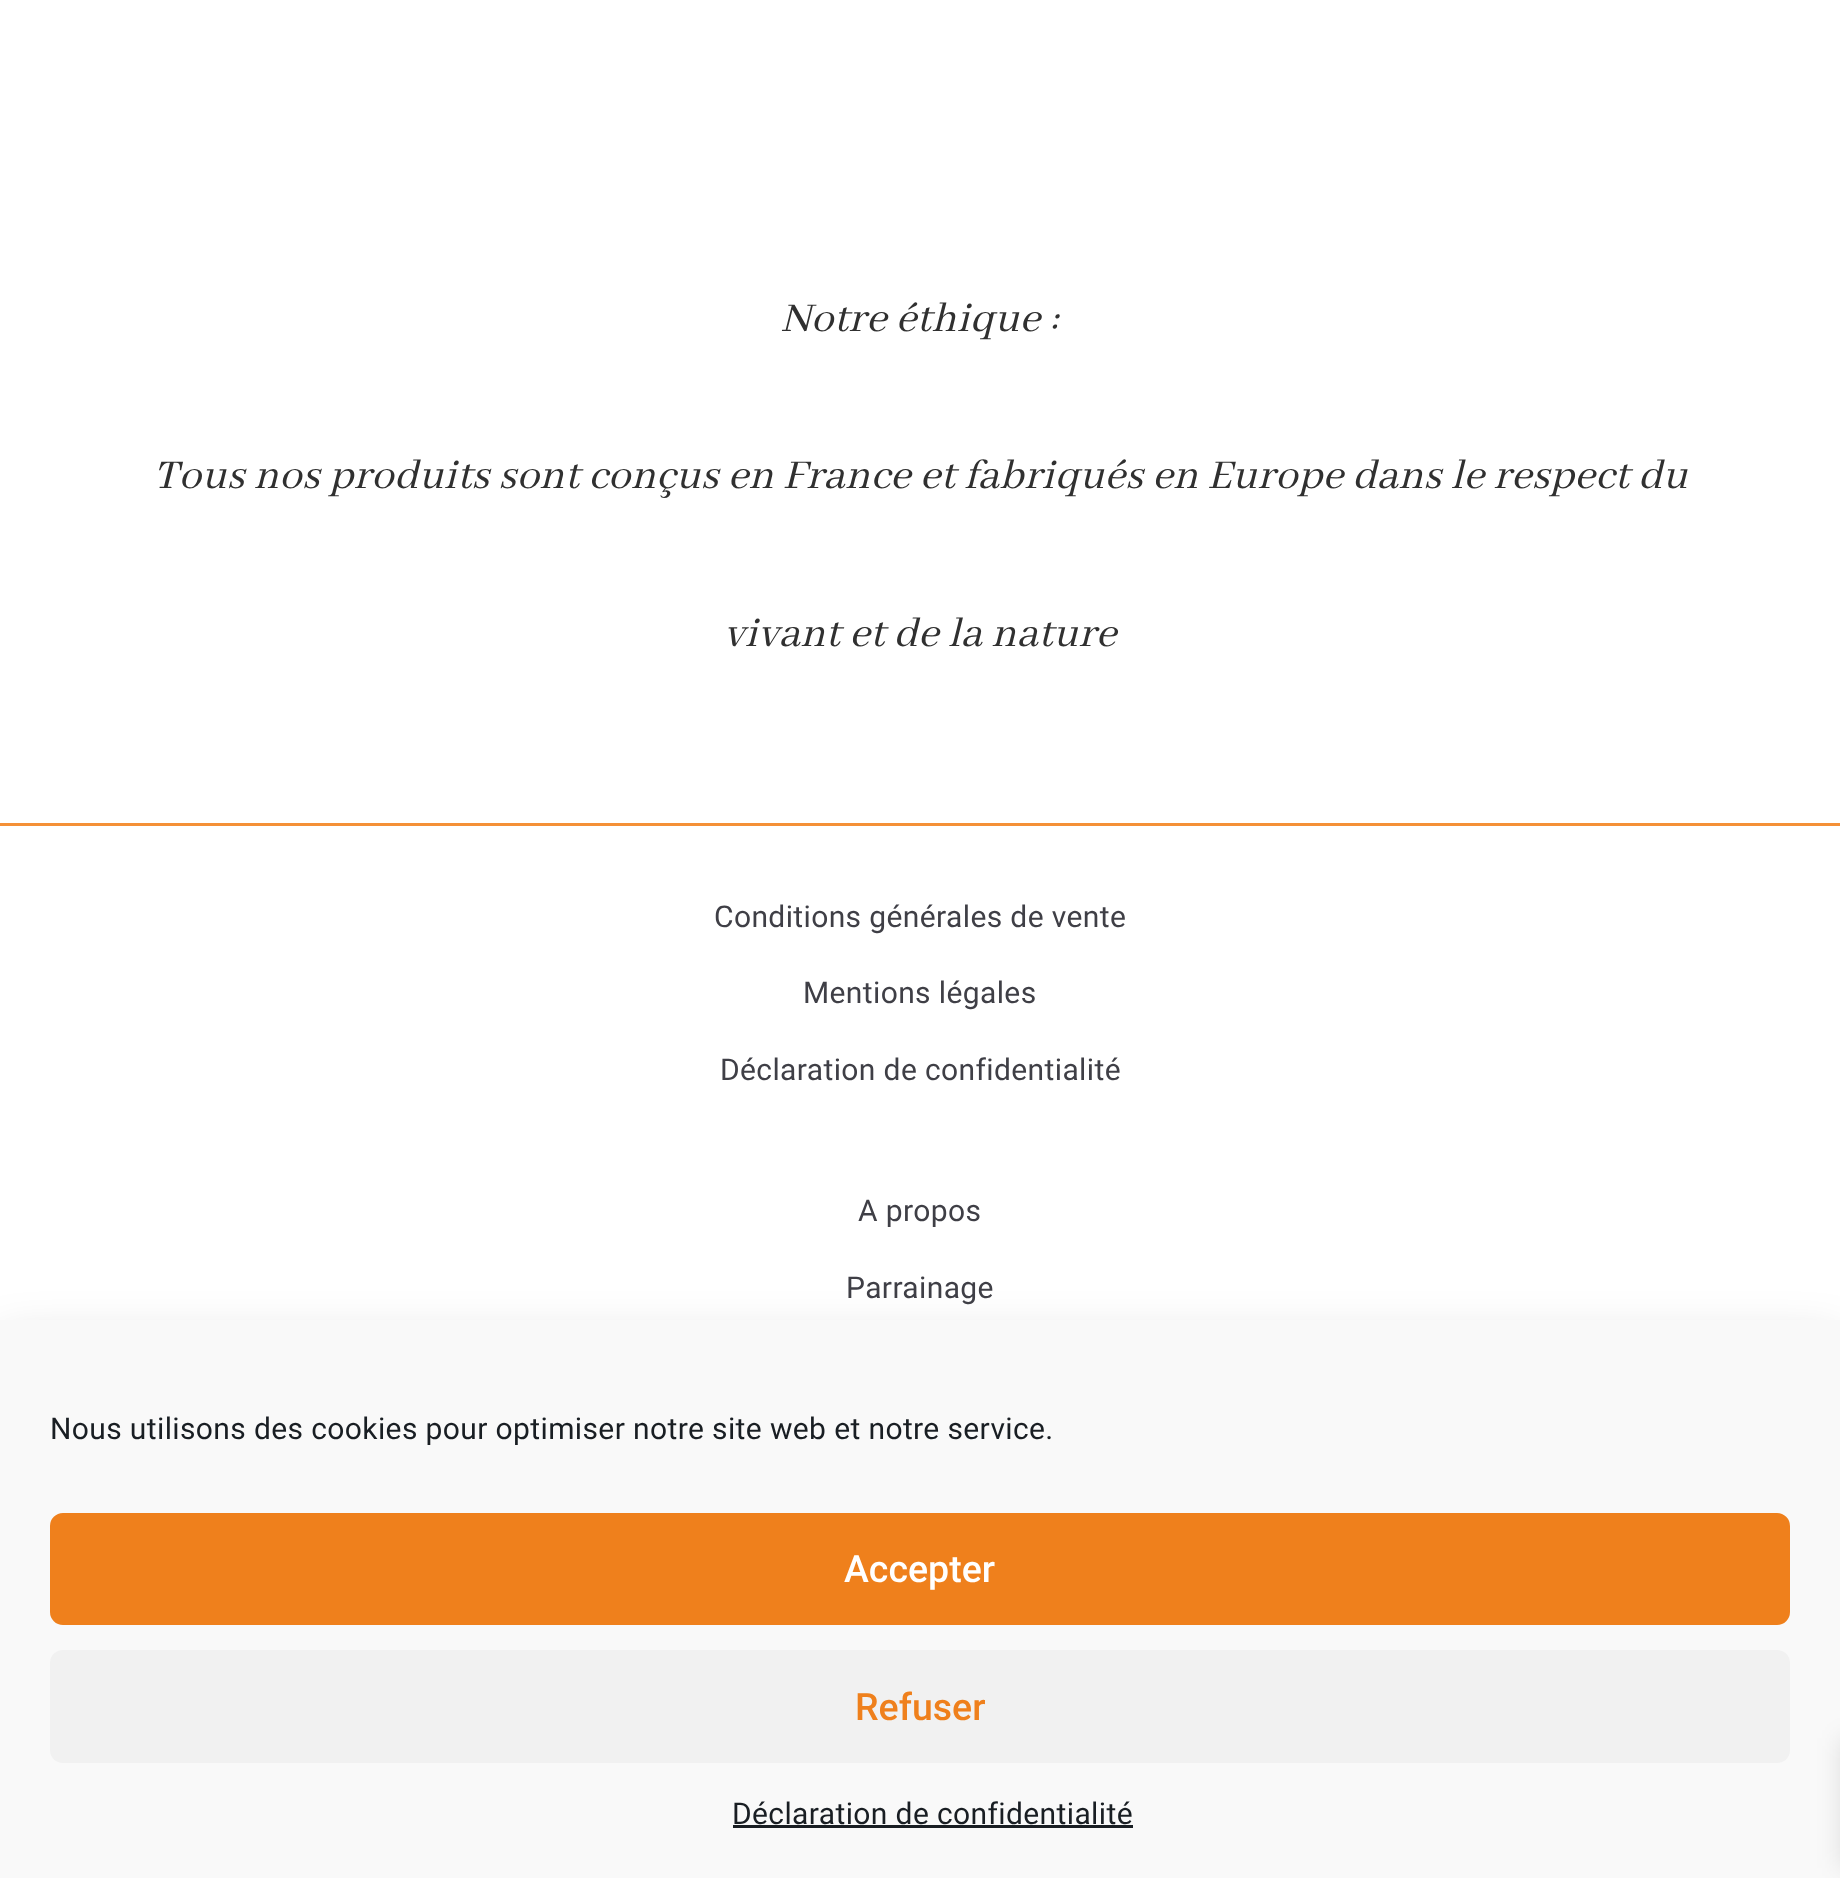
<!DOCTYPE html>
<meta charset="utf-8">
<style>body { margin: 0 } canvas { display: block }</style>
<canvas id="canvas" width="1840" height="1878"></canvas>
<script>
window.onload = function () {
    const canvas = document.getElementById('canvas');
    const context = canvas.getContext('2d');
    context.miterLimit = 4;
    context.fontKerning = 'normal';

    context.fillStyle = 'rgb(255, 255, 255)';
    context.fillRect(0, 0, 1840, 1878);
    context.fillStyle = 'rgb(244, 144, 55)';
    context.fillRect(0, 823, 1840, 3);
    context.fillStyle = 'rgba(0, 0, 0, 0.19)';
    context.filter = 'blur(25px)';
    context.beginPath();
    context.rect(0, 1343, 1840, 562);
    context.fill();
    context.filter = 'none';
    context.fillStyle = 'rgb(249, 249, 249)';
    context.fillRect(0, 1320, 1840, 558);
    context.fillStyle = 'rgb(239, 128, 28)';
    context.beginPath();
    context.roundRect(51.5, 1514.5, 1737, 109, 11.5);
    context.fill();
    context.strokeStyle = 'rgb(239, 128, 28)';
    context.lineWidth = 3;
    context.stroke();
    context.fillStyle = 'rgb(241, 241, 241)';
    context.beginPath();
    context.roundRect(50, 1650, 1740, 113, 13);
    context.fill();
    context.fillStyle = 'rgb(25, 30, 35)';
    context.fillRect(733, 1825, 400, 3);
    context.fillStyle = 'rgba(0, 0, 0, 0.1)';
    context.filter = 'blur(12.5px)';
    context.beginPath();
    context.rect(1840, 1738, 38, 130);
    context.fill();
    context.filter = 'none';
    context.letterSpacing = '0.38px';
    context.font = 'italic 45px Abhaya Libre';
    context.fillStyle = 'rgb(48, 48, 48)';
    context.fillText('Notre éthique :', 781, 331);
    context.fillText('Tous nos produits sont conçus en France et fabriqués en Europe dans le respect du', 153, 488);
    context.fillText('vivant et de la nature', 724, 646);
    context.font = '30px Roboto';
    context.fillStyle = 'rgb(63, 63, 70)';
    context.fillText('Conditions générales de vente', 714, 927);
    context.fillText('Mentions légales', 803, 1003);
    context.fillText('Déclaration de confidentialité', 720, 1080);
    context.fillText('A propos', 858, 1221);
    context.fillText('Parrainage', 846, 1298);
    context.fillStyle = 'rgb(25, 30, 35)';
    context.fillText('Nous utilisons des cookies pour optimiser notre site web et notre service.', 50, 1439);
    context.letterSpacing = '0px';
    context.font = '500 37.5px Roboto';
    context.fillStyle = 'rgb(255, 255, 255)';
    context.fillText('Accepter', 844, 1582);
    context.fillStyle = 'rgb(239, 128, 28)';
    context.fillText('Refuser', 855, 1720);
    context.letterSpacing = '0.38px';
    context.font = '30px Roboto';
    context.fillStyle = 'rgb(25, 30, 35)';
    context.fillText('Déclaration de confidentialité', 732, 1824);
};
</script>
